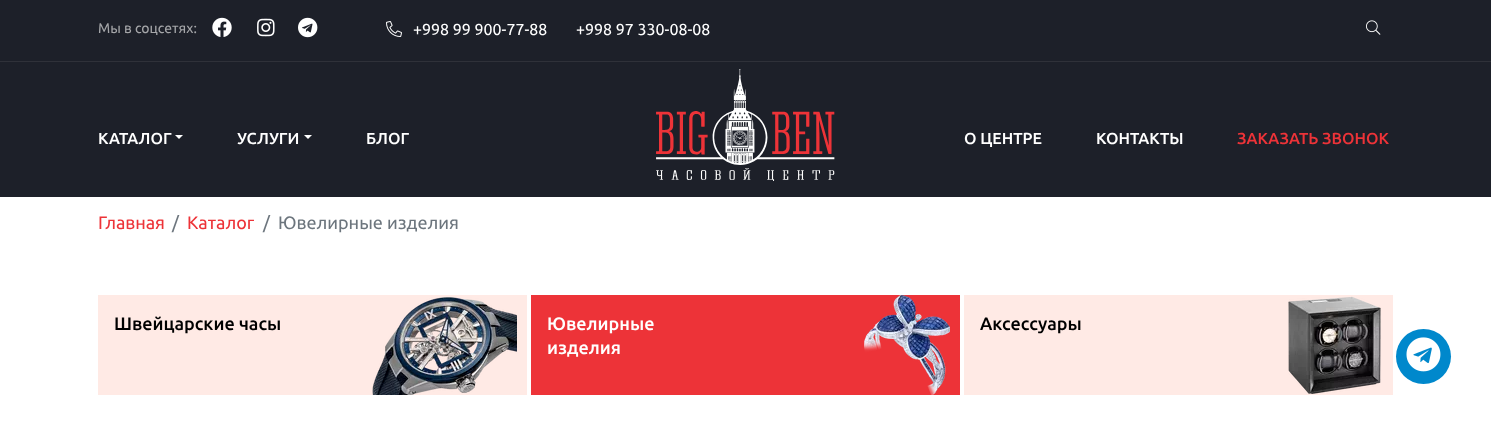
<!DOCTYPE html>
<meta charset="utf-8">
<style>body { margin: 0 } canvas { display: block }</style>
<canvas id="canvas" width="1491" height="441"></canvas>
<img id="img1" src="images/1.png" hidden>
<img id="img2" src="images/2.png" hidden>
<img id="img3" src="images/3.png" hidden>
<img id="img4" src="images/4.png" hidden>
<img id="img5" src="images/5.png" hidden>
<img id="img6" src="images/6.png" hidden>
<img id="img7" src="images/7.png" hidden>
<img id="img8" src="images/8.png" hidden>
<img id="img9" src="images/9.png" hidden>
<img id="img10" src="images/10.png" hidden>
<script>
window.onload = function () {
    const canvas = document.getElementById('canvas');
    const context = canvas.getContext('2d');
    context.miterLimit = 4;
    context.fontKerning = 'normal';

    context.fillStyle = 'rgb(255, 255, 255)';
    context.fillRect(0, 0, 1491, 441);
    context.fillStyle = 'rgb(29, 32, 41)';
    context.fillRect(0, 0, 1491, 61);
    context.fillStyle = 'rgb(47, 49, 57)';
    context.fillRect(0, 61, 1491, 1);
    context.drawImage(document.getElementById('img1'), 212, 17, 20, 20);
    context.drawImage(document.getElementById('img2'), 257, 18, 18, 19);
    context.drawImage(document.getElementById('img3'), 298, 17, 20, 21);
    context.drawImage(document.getElementById('img4'), 386, 21, 16, 16);
    context.drawImage(document.getElementById('img5'), 1366, 20, 15, 15);
    context.fillStyle = 'rgb(29, 32, 41)';
    context.fillRect(0, 62, 1491, 135);
    context.fillStyle = 'rgb(255, 255, 255)';
    context.beginPath();
    context.moveTo(175, 135);
    context.lineTo(183, 135);
    context.lineTo(179, 139);
    context.closePath();
    context.fill();
    context.beginPath();
    context.moveTo(304, 135);
    context.lineTo(312, 135);
    context.lineTo(308, 139);
    context.closePath();
    context.fill();
    context.drawImage(document.getElementById('img6'), 656, 69, 179, 112);
    context.fillStyle = 'rgb(255, 234, 229)';
    context.fillRect(98, 295, 429, 100);
    context.drawImage(document.getElementById('img7'), 372, 297, 145, 98);
    context.fillStyle = 'rgb(237, 51, 56)';
    context.fillRect(531, 295, 429, 100);
    context.drawImage(document.getElementById('img8'), 864, 295, 86, 100);
    context.fillStyle = 'rgb(255, 234, 229)';
    context.fillRect(964, 295, 429, 100);
    context.drawImage(document.getElementById('img9'), 1288, 296, 93, 98);
    context.fillStyle = 'rgb(0, 136, 204)';
    context.beginPath();
    context.arc(1423.5, 356.5, 27.5, 0, 2 * Math.PI);
    context.fill();
    context.drawImage(document.getElementById('img10'), 1406, 337, 35, 35);
    context.font = '14px Ubuntu';
    context.fillStyle = 'rgb(165, 166, 169)';
    context.fillText('Мы в соцсетях:', 98, 33);
    context.font = '16px Ubuntu';
    context.fillStyle = 'rgb(255, 255, 255)';
    context.fillText('+998 99 900-77-88', 413, 35);
    context.fillText('+998 97 330-08-08', 576, 35);
    context.font = '500 16px Ubuntu';
    context.fillText('КАТАЛОГ', 98, 144);
    context.fillText('УСЛУГИ', 237, 144);
    context.fillText('БЛОГ', 366, 144);
    context.fillText('О ЦЕНТРЕ', 964, 144);
    context.fillText('КОНТАКТЫ', 1096, 144);
    context.fillStyle = 'rgb(237, 51, 56)';
    context.fillText('ЗАКАЗАТЬ ЗВОНОК', 1237, 144);
    context.font = '18px Ubuntu';
    context.fillText('Главная', 98, 229);
    context.fillStyle = 'rgb(108, 117, 125)';
    context.fillText('/', 172, 229);
    context.fillStyle = 'rgb(237, 51, 56)';
    context.fillText('Каталог', 187, 229);
    context.fillStyle = 'rgb(108, 117, 125)';
    context.fillText('/', 263, 229);
    context.fillText('Ювелирные изделия', 278, 229);
    context.font = '500 18px Ubuntu';
    context.fillStyle = 'rgb(0, 0, 0)';
    context.fillText('Швейцарские часы', 114, 330);
    context.fillStyle = 'rgb(255, 255, 255)';
    context.fillText('Ювелирные', 547, 330);
    context.fillText('изделия', 547, 354);
    context.fillStyle = 'rgb(0, 0, 0)';
    context.fillText('Аксессуары', 980, 330);
};
</script>
